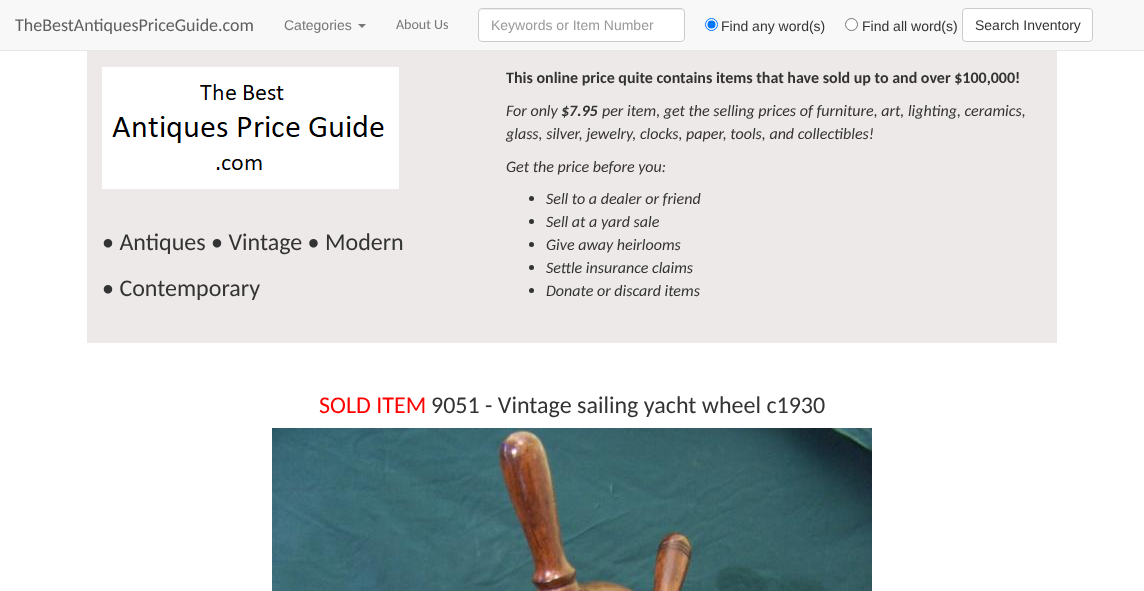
<!DOCTYPE html>
<meta charset="utf-8">
<style>body { margin: 0 } canvas { display: block }</style>
<canvas id="canvas" width="1144" height="591"></canvas>
<img id="img1" src="images/1.png" hidden>
<img id="img2" src="images/2.png" hidden>
<script>
window.onload = function () {
    const canvas = document.getElementById('canvas');
    const context = canvas.getContext('2d');
    context.miterLimit = 4;
    context.fontKerning = 'normal';

    context.fillStyle = 'rgb(255, 255, 255)';
    context.fillRect(0, 0, 1144, 591);
    context.fillStyle = 'rgb(248, 248, 248)';
    context.fillRect(0, 0, 1144, 50);
    context.fillStyle = 'rgb(231, 231, 231)';
    context.fillRect(0, 50, 1144, 1);
    context.fillStyle = 'rgb(119, 119, 119)';
    context.beginPath();
    context.moveTo(358, 24);
    context.lineTo(366, 24);
    context.lineTo(362, 28);
    context.closePath();
    context.fill();
    context.fillStyle = 'rgb(255, 255, 255)';
    context.beginPath();
    context.roundRect(478, 8, 207, 34, 4);
    context.fill();
    context.fillStyle = 'rgb(236, 236, 236)';
    context.beginPath();
    context.moveTo(482, 10);
    context.lineTo(681, 10);
    context.bezierCurveTo(683, 10, 684, 11, 684, 13);
    context.bezierCurveTo(684, 11, 683, 9, 681, 9);
    context.lineTo(482, 9);
    context.bezierCurveTo(480, 9, 479, 11, 479, 13);
    context.bezierCurveTo(479, 11, 480, 10, 482, 10);
    context.closePath();
    context.fill();
    context.beginPath();
    context.roundRect(478.5, 8.5, 206, 33, 3.5);
    context.strokeStyle = 'rgb(204, 204, 204)';
    context.stroke();
    context.fillStyle = 'rgb(255, 255, 255)';
    context.beginPath();
    context.arc(711.5, 24.5, 6, 0, 2 * Math.PI);
    context.fill();
    context.strokeStyle = 'rgb(0, 117, 255)';
    context.stroke();
    context.fillStyle = 'rgb(0, 117, 255)';
    context.beginPath();
    context.arc(711.5, 24.5, 4, 0, 2 * Math.PI);
    context.fill();
    context.fillStyle = 'rgb(255, 255, 255)';
    context.beginPath();
    context.arc(851.5, 24.5, 6, 0, 2 * Math.PI);
    context.fill();
    context.strokeStyle = 'rgb(118, 118, 118)';
    context.stroke();
    context.beginPath();
    context.roundRect(962.5, 8.5, 130, 33, 3.5);
    context.fill();
    context.strokeStyle = 'rgb(204, 204, 204)';
    context.stroke();
    context.fillStyle = 'rgb(238, 233, 233)';
    context.fillRect(87, 51, 970, 292);
    context.drawImage(document.getElementById('img1'), 102, 67, 297, 122);
    context.fillStyle = 'rgb(51, 51, 51)';
    context.beginPath();
    context.arc(531.5, 198.5, 2.5, 0, 2 * Math.PI);
    context.fill();
    context.beginPath();
    context.arc(531.5, 221.5, 2.5, 0, 2 * Math.PI);
    context.fill();
    context.beginPath();
    context.arc(531.5, 244.5, 2.5, 0, 2 * Math.PI);
    context.fill();
    context.beginPath();
    context.arc(531.5, 267.5, 2.5, 0, 2 * Math.PI);
    context.fill();
    context.beginPath();
    context.arc(531.5, 290.5, 2.5, 0, 2 * Math.PI);
    context.fill();
    context.drawImage(document.getElementById('img2'), 272, 428, 600, 163);
    context.font = '18px Carlito';
    context.fillStyle = 'rgb(94, 94, 94)';
    context.fillText('TheBestAntiquesPriceGuide.com', 15, 31);
    context.font = '14px Liberation Sans';
    context.fillStyle = 'rgb(119, 119, 119)';
    context.fillText('Categories', 284, 30);
    context.font = '14px Carlito';
    context.fillText('About Us', 396, 29);
    context.font = '14px Liberation Sans';
    context.fillStyle = 'rgb(153, 153, 153)';
    context.fillText('Keywords or Item Number', 491, 30);
    context.fillStyle = 'rgb(51, 51, 51)';
    context.fillText('Find any word(s)', 721, 31);
    context.fillText('Find all word(s)', 862, 31);
    context.fillText('Search Inventory', 975, 30);
    context.font = '24px Carlito';
    context.fillText('• Antiques • Vintage • Modern', 102, 250);
    context.fillText('• Contemporary', 102, 296);
    context.font = 'bold 16px Carlito';
    context.fillText('This online price quite contains items that have sold up to and over $100,000!', 506, 83);
    context.font = 'italic 16px Carlito';
    context.fillText('For only', 506, 116);
    context.font = 'italic bold 16px Carlito';
    context.fillText('$7.95', 561, 116);
    context.font = 'italic 16px Carlito';
    context.fillText('per item, get the selling prices of furniture, art, lighting, ceramics,', 602, 116);
    context.fillText('glass, silver, jewelry, clocks, paper, tools, and collectibles!', 506, 139);
    context.fillText('Get the price before you:', 506, 172);
    context.fillText('Sell to a dealer or friend', 546, 204);
    context.fillText('Sell at a yard sale', 546, 227);
    context.fillText('Give away heirlooms', 546, 250);
    context.fillText('Settle insurance claims', 546, 273);
    context.fillText('Donate or discard items', 546, 296);
    context.font = '24px Carlito';
    context.fillStyle = 'rgb(255, 0, 0)';
    context.fillText('SOLD ITEM', 319, 413);
    context.fillStyle = 'rgb(51, 51, 51)';
    context.fillText('9051 - Vintage sailing yacht wheel c1930', 431, 413);
};
</script>
